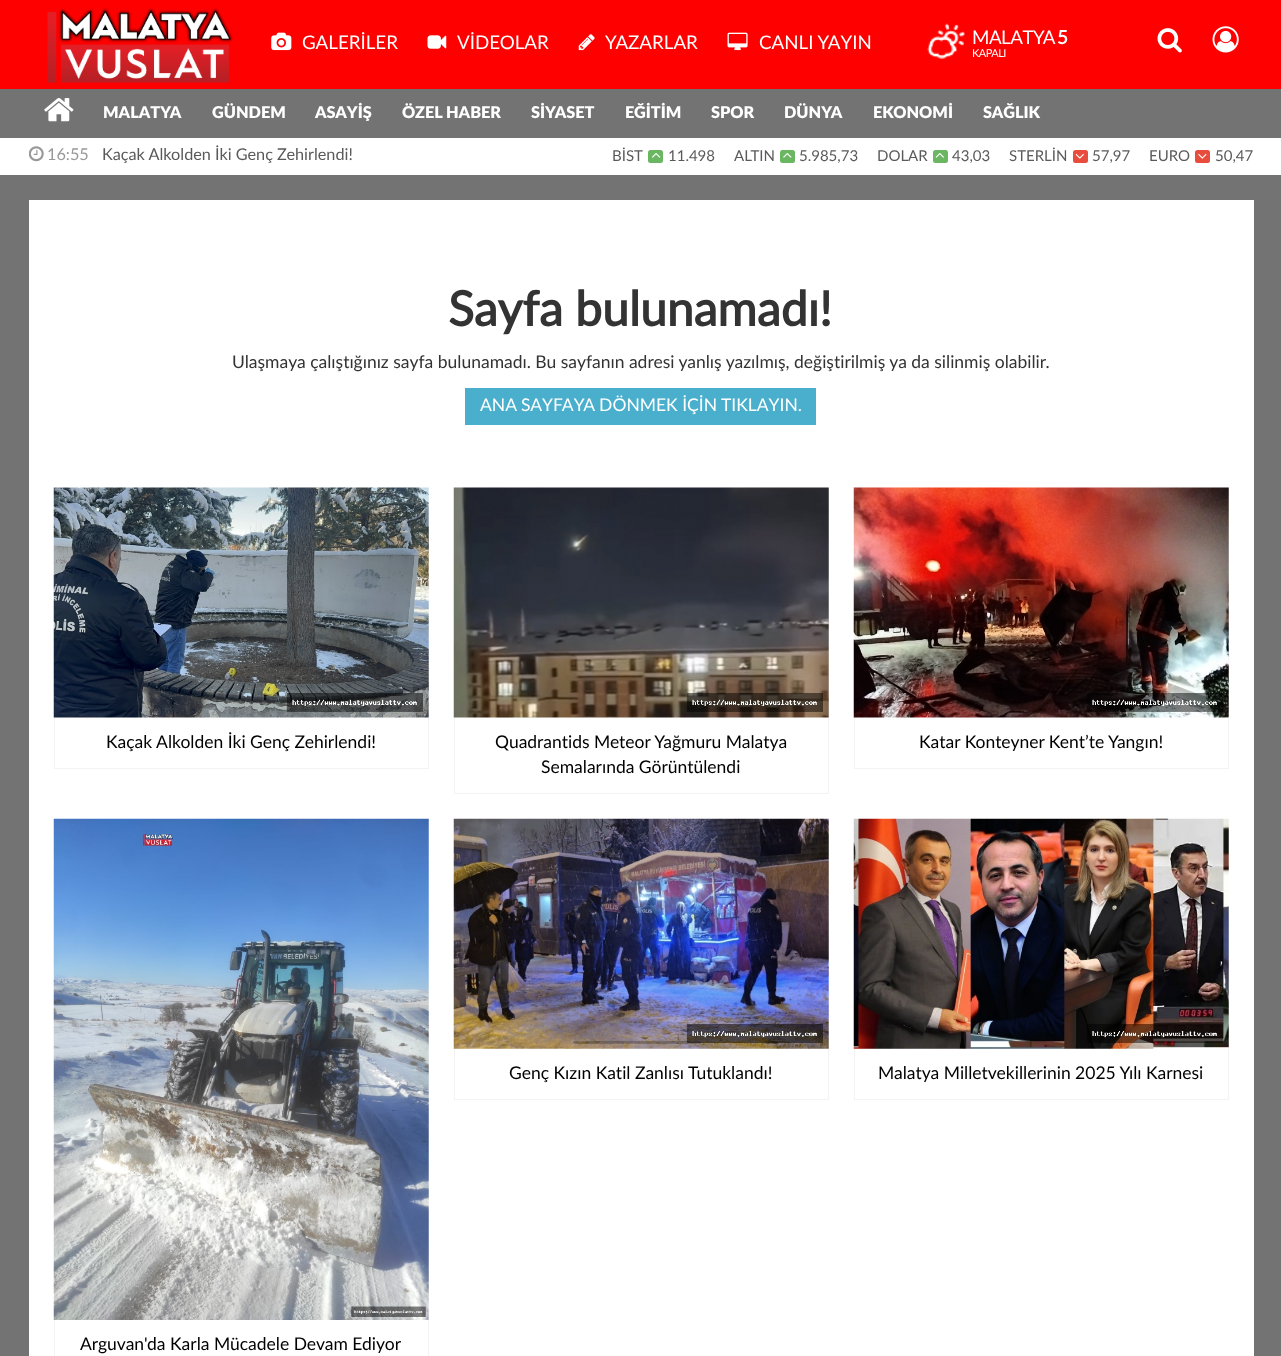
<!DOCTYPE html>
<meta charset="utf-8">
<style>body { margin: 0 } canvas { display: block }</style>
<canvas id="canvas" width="1281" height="1356"></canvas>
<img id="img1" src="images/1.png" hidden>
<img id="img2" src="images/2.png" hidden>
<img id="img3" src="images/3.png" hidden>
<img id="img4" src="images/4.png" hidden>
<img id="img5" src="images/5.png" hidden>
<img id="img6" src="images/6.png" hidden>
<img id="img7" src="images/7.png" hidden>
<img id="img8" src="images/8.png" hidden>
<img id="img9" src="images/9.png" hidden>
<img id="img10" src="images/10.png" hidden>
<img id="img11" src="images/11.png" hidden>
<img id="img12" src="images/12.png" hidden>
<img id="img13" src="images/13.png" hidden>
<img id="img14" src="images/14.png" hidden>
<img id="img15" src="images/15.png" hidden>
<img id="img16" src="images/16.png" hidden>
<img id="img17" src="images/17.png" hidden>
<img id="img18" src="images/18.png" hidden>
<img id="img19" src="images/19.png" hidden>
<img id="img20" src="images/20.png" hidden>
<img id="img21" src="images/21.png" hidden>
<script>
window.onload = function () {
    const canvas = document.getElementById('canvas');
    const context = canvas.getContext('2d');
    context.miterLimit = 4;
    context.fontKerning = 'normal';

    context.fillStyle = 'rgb(115, 115, 115)';
    context.fillRect(0, 0, 1281, 1356);
    context.fillStyle = 'rgb(255, 255, 255)';
    context.fillRect(0, 138, 1281, 37);
    context.fillStyle = 'rgb(255, 0, 0)';
    context.fillRect(0, 0, 1281, 89);
    context.drawImage(document.getElementById('img1'), 47, 7, 186, 76);
    context.drawImage(document.getElementById('img2'), 271, 32, 21, 19);
    context.drawImage(document.getElementById('img3'), 427, 35, 20, 14);
    context.drawImage(document.getElementById('img4'), 578, 34, 17, 17);
    context.drawImage(document.getElementById('img5'), 727, 32, 21, 19);
    context.drawImage(document.getElementById('img6'), 927, 23, 38, 36);
    context.drawImage(document.getElementById('img7'), 1157, 28, 25, 25);
    context.drawImage(document.getElementById('img8'), 1212, 26, 27, 27);
    context.drawImage(document.getElementById('img9'), 44, 98, 30, 24);
    context.drawImage(document.getElementById('img10'), 29, 146, 15, 16);
    context.fillStyle = 'rgb(106, 182, 97)';
    context.beginPath();
    context.roundRect(648, 150, 15, 13, 2.5);
    context.fill();
    context.drawImage(document.getElementById('img11'), 652, 152, 9, 6);
    context.beginPath();
    context.roundRect(780, 150, 15, 13, 2.5);
    context.fill();
    context.drawImage(document.getElementById('img12'), 783, 152, 9, 6);
    context.beginPath();
    context.roundRect(933, 150, 15, 13, 2.5);
    context.fill();
    context.drawImage(document.getElementById('img13'), 935, 152, 9, 6);
    context.fillStyle = 'rgb(231, 76, 60)';
    context.beginPath();
    context.roundRect(1073, 150, 15, 13, 2.5);
    context.fill();
    context.drawImage(document.getElementById('img14'), 1075, 153, 9, 6);
    context.beginPath();
    context.roundRect(1195, 150, 15, 13, 2.5);
    context.fill();
    context.drawImage(document.getElementById('img15'), 1198, 153, 9, 6);
    context.fillStyle = 'rgb(255, 255, 255)';
    context.fillRect(29, 200, 1225, 1156);
    context.fillStyle = 'rgb(73, 175, 205)';
    context.fillRect(465, 388, 351, 37);
    context.drawImage(document.getElementById('img16'), 53, 487, 376, 231);
    context.fillStyle = 'rgb(244, 243, 243)';
    context.fillRect(428, 718, 1, 51);
    context.fillRect(54, 768, 375, 1);
    context.fillRect(54, 718, 1, 51);
    context.drawImage(document.getElementById('img17'), 453, 487, 376, 231);
    context.fillRect(828, 718, 1, 76);
    context.fillRect(454, 793, 375, 1);
    context.fillRect(454, 718, 1, 76);
    context.drawImage(document.getElementById('img18'), 853, 487, 376, 231);
    context.fillRect(1228, 718, 1, 51);
    context.fillRect(854, 768, 375, 1);
    context.fillRect(854, 718, 1, 51);
    context.drawImage(document.getElementById('img19'), 453, 818, 376, 231);
    context.fillRect(828, 1049, 1, 51);
    context.fillRect(454, 1099, 375, 1);
    context.fillRect(454, 1049, 1, 51);
    context.drawImage(document.getElementById('img20'), 853, 818, 376, 231);
    context.fillRect(1228, 1049, 1, 51);
    context.fillRect(854, 1099, 375, 1);
    context.fillRect(854, 1049, 1, 51);
    context.drawImage(document.getElementById('img21'), 53, 818, 376, 502);
    context.fillRect(428, 1320, 1, 36);
    context.fillRect(54, 1320, 1, 36);
    context.font = '18.75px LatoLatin';
    context.fillStyle = 'rgb(255, 255, 255)';
    context.fillText('GALERİLER', 302, 49);
    context.fillText('VİDEOLAR', 457, 49);
    context.fillText('YAZARLAR', 605, 49);
    context.fillText('CANLI YAYIN', 759, 49);
    context.letterSpacing = '-0.5px';
    context.fillText('MALATYA', 972, 44);
    context.font = 'bold 18.75px LatoLatin';
    context.fillText('5', 1057, 44);
    context.font = '11px LatoLatin';
    context.fillText('KAPALI', 972, 57);
    context.letterSpacing = '0px';
    context.font = '900 16.25px LatoLatin';
    context.fillText('MALATYA', 103, 118);
    context.fillText('GÜNDEM', 212, 118);
    context.fillText('ASAYİŞ', 315, 118);
    context.fillText('ÖZEL HABER', 402, 118);
    context.fillText('SİYASET', 531, 118);
    context.fillText('EĞİTİM', 625, 118);
    context.fillText('SPOR', 711, 118);
    context.fillText('DÜNYA', 784, 118);
    context.fillText('EKONOMİ', 873, 118);
    context.fillText('SAĞLIK', 983, 118);
    context.font = '16.25px LatoLatin';
    context.fillStyle = 'rgb(153, 153, 153)';
    context.fillText('16:55', 47, 160);
    context.fillStyle = 'rgb(90, 90, 90)';
    context.fillText('Kaçak Alkolden İki Genç Zehirlendi!', 102, 160);
    context.font = '15px LatoLatin';
    context.fillText('BİST', 612, 161);
    context.fillText('11.498', 668, 161);
    context.fillText('ALTIN', 734, 161);
    context.fillText('5.985,73', 799, 161);
    context.fillText('DOLAR', 877, 161);
    context.fillText('43,03', 952, 161);
    context.fillText('STERLİN', 1009, 161);
    context.fillText('57,97', 1092, 161);
    context.fillText('EURO', 1149, 161);
    context.fillText('50,47', 1215, 161);
    context.font = 'bold 48px LatoLatin';
    context.fillStyle = 'rgb(51, 51, 51)';
    context.fillText('Sayfa bulunamadı!', 448, 326);
    context.font = '17.5px LatoLatin';
    context.fillText('Ulaşmaya çalıştığınız sayfa bulunamadı. Bu sayfanın adresi yanlış yazılmış, değiştirilmiş ya da silinmiş olabilir.', 232, 368);
    context.fillStyle = 'rgb(255, 255, 255)';
    context.fillText('ANA SAYFAYA DÖNMEK İÇİN TIKLAYIN.', 480, 411);
    context.fillStyle = 'rgb(0, 0, 0)';
    context.fillText('Kaçak Alkolden İki Genç Zehirlendi!', 106, 748);
    context.fillText('Quadrantids Meteor Yağmuru Malatya', 495, 748);
    context.fillText('Semalarında Görüntülendi', 541, 773);
    context.fillText('Katar Konteyner Kent’te Yangın!', 919, 748);
    context.fillText('Genç Kızın Katil Zanlısı Tutuklandı!', 509, 1079);
    context.fillText('Malatya Milletvekillerinin 2025 Yılı Karnesi', 878, 1079);
    context.fillText('Arguvan\'da Karla Mücadele Devam Ediyor', 80, 1350);
};
</script>
